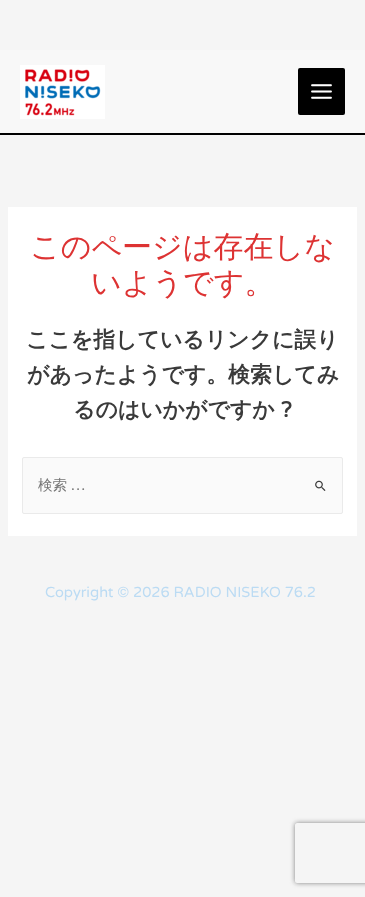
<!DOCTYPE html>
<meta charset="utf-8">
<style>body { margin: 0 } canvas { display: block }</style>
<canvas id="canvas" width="365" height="897"></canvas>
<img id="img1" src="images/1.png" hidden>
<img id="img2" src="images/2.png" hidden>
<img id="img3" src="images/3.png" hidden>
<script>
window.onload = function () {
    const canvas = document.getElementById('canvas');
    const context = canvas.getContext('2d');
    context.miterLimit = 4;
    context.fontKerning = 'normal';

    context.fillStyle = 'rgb(245, 245, 245)';
    context.fillRect(0, 0, 365, 897);
    context.fillStyle = 'rgb(248, 248, 248)';
    context.fillRect(0, 50, 365, 83);
    context.fillStyle = 'rgb(0, 0, 0)';
    context.fillRect(0, 133, 365, 2);
    context.drawImage(document.getElementById('img1'), 20, 65, 85, 54);
    context.beginPath();
    context.roundRect(298, 68, 47, 47, 2);
    context.fill();
    context.drawImage(document.getElementById('img2'), 311, 84, 21, 15);
    context.fillStyle = 'rgb(255, 255, 255)';
    context.fillRect(8, 207, 349, 329);
    context.fillStyle = 'rgb(250, 250, 250)';
    context.beginPath();
    context.roundRect(22.5, 457.5, 320, 56, 1.5);
    context.fill();
    context.strokeStyle = 'rgb(234, 234, 234)';
    context.stroke();
    context.drawImage(document.getElementById('img3'), 315, 480, 11, 11);
    context.save();
    context.beginPath();
    context.moveTo(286, 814);
    context.lineTo(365, 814);
    context.lineTo(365, 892);
    context.lineTo(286, 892);
    context.closePath();
    context.moveTo(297, 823);
    context.lineTo(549, 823);
    context.bezierCurveTo(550, 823, 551, 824, 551, 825);
    context.lineTo(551, 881);
    context.bezierCurveTo(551, 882, 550, 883, 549, 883);
    context.lineTo(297, 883);
    context.bezierCurveTo(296, 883, 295, 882, 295, 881);
    context.lineTo(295, 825);
    context.bezierCurveTo(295, 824, 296, 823, 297, 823);
    context.closePath();
    context.clip('evenodd');
    context.fillStyle = 'rgb(128, 128, 128)';
    context.filter = 'blur(2.5px)';
    context.beginPath();
    context.roundRect(295, 823, 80, 60, 2);
    context.fill();
    context.filter = 'none';
    context.restore();
    context.font = '500 30px WenQuanYi Zen Hei';
    context.fillStyle = 'rgb(221, 51, 51)';
    context.fillText('このページは存在しな', 30, 257);
    context.fillText('いようです。', 91, 293);
    context.font = 'bold 21.9px WenQuanYi Zen Hei';
    context.fillStyle = 'rgb(58, 58, 58)';
    context.fillText('ここを指しているリンクに誤り', 26, 347);
    context.fillText('があったようです。検索してみ', 27, 382);
    context.fillText('るのはいかがですか', 73, 417);
    context.font = 'bold 21.9px Varela Round';
    context.fillText('?', 281, 417);
    context.font = '500 14.6px WenQuanYi Zen Hei';
    context.fillStyle = 'rgb(117, 117, 117)';
    context.fillText('検索', 38, 490);
    context.font = '14.6px Varela Round';
    context.fillText('…', 71, 490);
    context.fillStyle = 'rgb(187, 219, 243)';
    context.fillText('Copyright © 2026 RADIO NISEKO 76.2', 45, 597);
};
</script>
